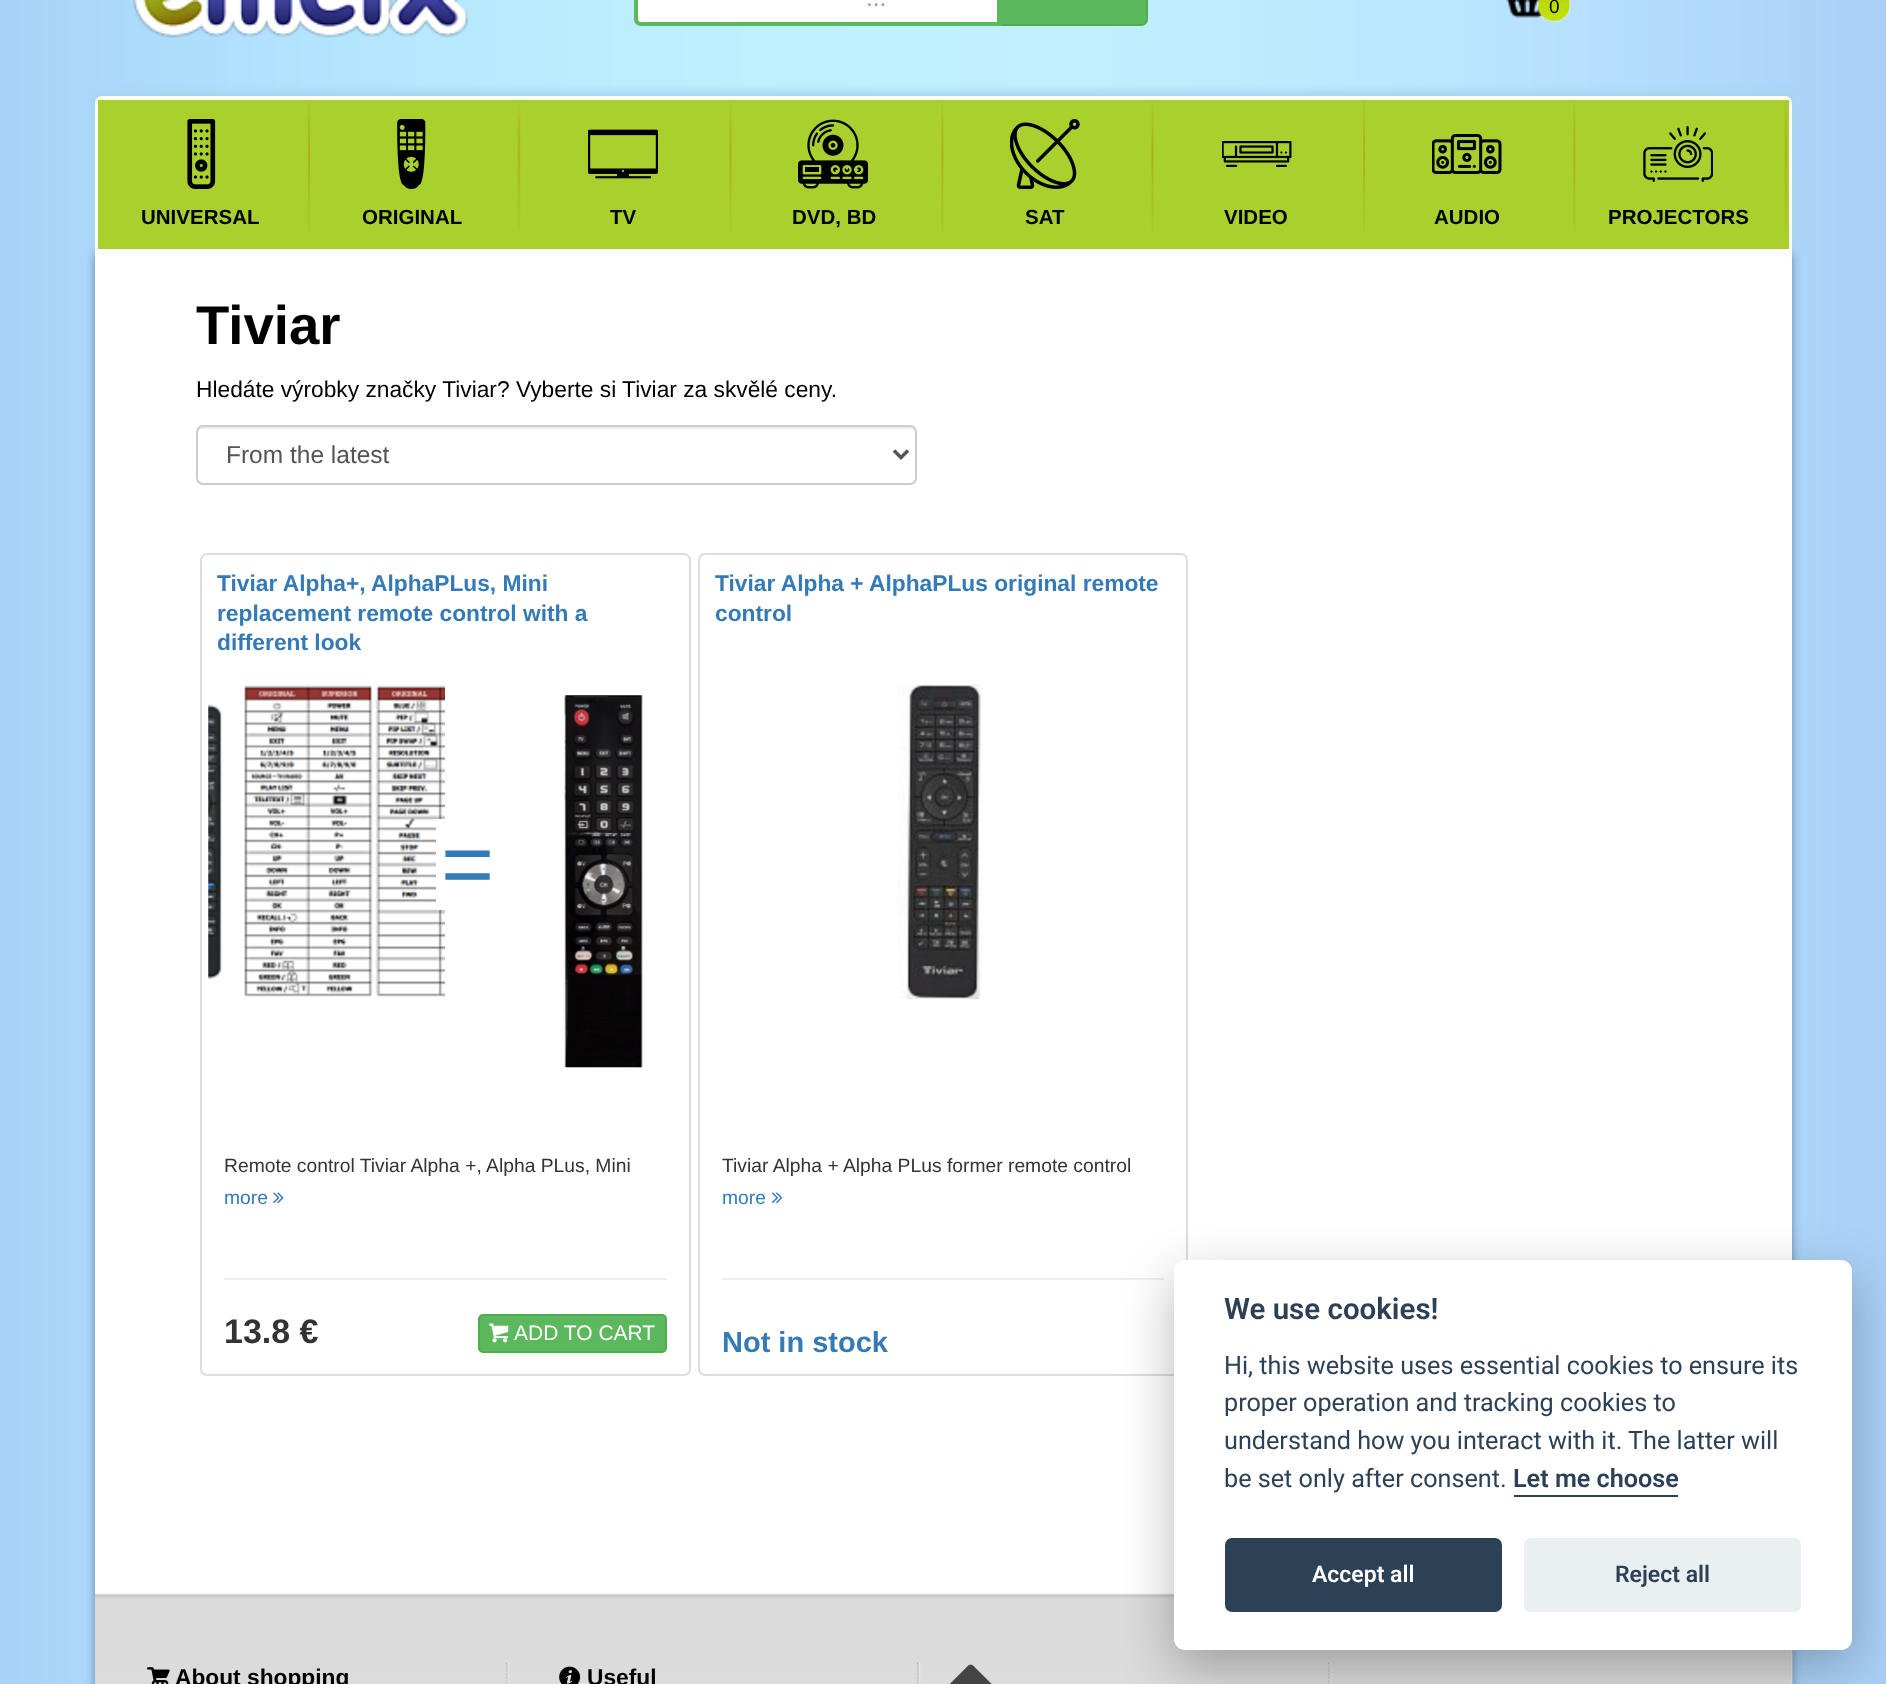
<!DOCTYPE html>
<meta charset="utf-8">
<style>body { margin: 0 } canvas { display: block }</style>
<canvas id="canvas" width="1886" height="1684"></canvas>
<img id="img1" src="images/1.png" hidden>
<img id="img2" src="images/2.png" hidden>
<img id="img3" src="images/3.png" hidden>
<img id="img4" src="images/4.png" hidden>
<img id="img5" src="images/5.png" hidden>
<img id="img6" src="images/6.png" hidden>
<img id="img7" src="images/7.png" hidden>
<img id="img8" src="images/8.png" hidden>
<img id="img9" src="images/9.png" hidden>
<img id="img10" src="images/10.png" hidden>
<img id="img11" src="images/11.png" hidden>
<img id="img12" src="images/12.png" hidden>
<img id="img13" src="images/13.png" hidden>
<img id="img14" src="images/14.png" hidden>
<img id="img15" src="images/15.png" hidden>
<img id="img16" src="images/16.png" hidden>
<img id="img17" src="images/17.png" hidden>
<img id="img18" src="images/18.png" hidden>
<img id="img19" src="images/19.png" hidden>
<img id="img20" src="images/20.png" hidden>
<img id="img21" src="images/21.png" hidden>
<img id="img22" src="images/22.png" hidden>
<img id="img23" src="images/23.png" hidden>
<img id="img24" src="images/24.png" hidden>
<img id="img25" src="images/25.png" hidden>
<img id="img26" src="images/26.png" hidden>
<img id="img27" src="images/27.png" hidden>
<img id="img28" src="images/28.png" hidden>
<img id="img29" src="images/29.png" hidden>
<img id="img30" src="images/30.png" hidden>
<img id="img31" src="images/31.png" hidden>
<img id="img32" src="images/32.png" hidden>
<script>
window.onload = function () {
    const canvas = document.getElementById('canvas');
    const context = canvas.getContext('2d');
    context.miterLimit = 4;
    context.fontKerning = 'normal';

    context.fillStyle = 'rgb(255, 255, 255)';
    context.fillRect(0, 0, 1886, 1684);
    context.drawImage(document.getElementById('img1'), 0, 0, 1886, 1684);
    context.drawImage(document.getElementById('img2'), 133, 0, 336, 38);
    context.fillStyle = 'rgb(92, 184, 92)';
    context.beginPath();
    context.moveTo(1000, -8);
    context.lineTo(1141, -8);
    context.bezierCurveTo(1144.5, -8, 1147, -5.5, 1147, -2);
    context.lineTo(1147, 19);
    context.bezierCurveTo(1147, 22.5, 1144.5, 25, 1141, 25);
    context.lineTo(1000, 25);
    context.closePath();
    context.fill();
    context.strokeStyle = 'rgb(76, 174, 76)';
    context.lineWidth = 2;
    context.stroke();
    context.fillStyle = 'rgb(255, 255, 255)';
    context.beginPath();
    context.moveTo(641, -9);
    context.lineTo(999, -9);
    context.lineTo(999, 24);
    context.lineTo(641, 24);
    context.bezierCurveTo(638, 24, 636, 22, 636, 19);
    context.lineTo(636, -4);
    context.bezierCurveTo(636, -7, 638, -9, 641, -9);
    context.closePath();
    context.fill();
    context.strokeStyle = 'rgb(92, 184, 92)';
    context.lineWidth = 4;
    context.stroke();
    context.drawImage(document.getElementById('img3'), 1506, 0, 39, 19);
    context.fillStyle = 'rgb(242, 250, 255)';
    context.filter = 'blur(1px)';
    context.beginPath();
    context.roundRect(1538, -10, 32, 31, 15.5);
    context.fill();
    context.filter = 'none';
    context.drawImage(document.getElementById('img4'), 1538, 0, 32, 21);
    context.fillStyle = 'rgb(100, 133, 171)';
    context.filter = 'blur(5px)';
    context.beginPath();
    context.roundRect(95, 252, 1697, 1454, 7);
    context.fill();
    context.filter = 'none';
    context.fillStyle = 'rgb(255, 255, 255)';
    context.fillRect(95, 252, 1697, 1432);
    context.fillStyle = 'rgb(166, 212, 238)';
    context.filter = 'blur(4.5px)';
    context.beginPath();
    context.roundRect(95, 91, 1697, 156, 7);
    context.fill();
    context.filter = 'none';
    context.fillStyle = 'rgb(255, 255, 255)';
    context.beginPath();
    context.roundRect(95, 96, 1697, 156, [7, 7, 0, 0]);
    context.fill();
    context.fillStyle = 'rgb(169, 208, 44)';
    context.fillRect(98, 100, 1691, 149);
    context.drawImage(document.getElementById('img5'), 307, 102, 3, 131);
    context.drawImage(document.getElementById('img6'), 187, 119, 29, 70);
    context.drawImage(document.getElementById('img7'), 517, 102, 4, 129);
    context.drawImage(document.getElementById('img8'), 397, 119, 29, 70);
    context.drawImage(document.getElementById('img9'), 729, 102, 3, 130);
    context.drawImage(document.getElementById('img10'), 588, 129, 70, 50);
    context.drawImage(document.getElementById('img11'), 941, 102, 3, 131);
    context.drawImage(document.getElementById('img12'), 798, 119, 70, 70);
    context.drawImage(document.getElementById('img13'), 1151, 102, 3, 132);
    context.drawImage(document.getElementById('img14'), 1010, 119, 70, 70);
    context.drawImage(document.getElementById('img15'), 1363, 102, 2, 131);
    context.drawImage(document.getElementById('img16'), 1222, 141, 70, 26);
    context.drawImage(document.getElementById('img17'), 1573, 102, 3, 131);
    context.drawImage(document.getElementById('img18'), 1432, 134, 70, 40);
    context.drawImage(document.getElementById('img7'), 1784, 102, 4, 129);
    context.drawImage(document.getElementById('img19'), 1643, 126, 70, 56);
    context.fillStyle = 'rgb(236, 236, 236)';
    context.beginPath();
    context.moveTo(203, 429);
    context.lineTo(910, 429);
    context.bezierCurveTo(913, 429, 915, 431, 915, 434);
    context.lineTo(915, 432);
    context.bezierCurveTo(915, 429, 913, 427, 910, 427);
    context.lineTo(203, 427);
    context.bezierCurveTo(200, 427, 198, 429, 198, 432);
    context.lineTo(198, 434);
    context.bezierCurveTo(198, 431, 200, 429, 203, 429);
    context.closePath();
    context.fill();
    context.beginPath();
    context.roundRect(197, 426, 719, 58, 6);
    context.strokeStyle = 'rgb(204, 204, 204)';
    context.lineWidth = 2;
    context.stroke();
    context.beginPath();
    context.moveTo(894, 450.5);
    context.lineTo(901, 457.5);
    context.lineTo(908, 450.5);
    context.strokeStyle = 'rgb(85, 85, 85)';
    context.lineWidth = 3.5;
    context.stroke();
    context.beginPath();
    context.roundRect(201, 554, 489, 821, 6);
    context.strokeStyle = 'rgb(221, 221, 221)';
    context.lineWidth = 2;
    context.stroke();
    context.drawImage(document.getElementById('img20'), 208, 685, 237, 312);
    context.fillStyle = 'rgb(255, 255, 255)';
    context.fillRect(436, 819, 9, 91);
    context.drawImage(document.getElementById('img21'), 561, 695, 82, 373);
    context.drawImage(document.getElementById('img22'), 273, 1192, 11, 12);
    context.fillStyle = 'rgb(238, 238, 238)';
    context.fillRect(224, 1278, 443, 2);
    context.fillStyle = 'rgb(92, 184, 92)';
    context.beginPath();
    context.roundRect(479, 1315, 187, 37, 4);
    context.fill();
    context.strokeStyle = 'rgb(76, 174, 76)';
    context.stroke();
    context.drawImage(document.getElementById('img23'), 489, 1323, 20, 20);
    context.beginPath();
    context.roundRect(699, 554, 488, 821, 6);
    context.strokeStyle = 'rgb(221, 221, 221)';
    context.stroke();
    context.drawImage(document.getElementById('img24'), 897, 684, 86, 316);
    context.drawImage(document.getElementById('img25'), 771, 1192, 12, 12);
    context.fillStyle = 'rgb(238, 238, 238)';
    context.fillRect(723, 1278, 441, 2);
    context.drawImage(document.getElementById('img26'), 95, 1592, 1698, 92);
    context.drawImage(document.getElementById('img27'), 505, 1662, 5, 22);
    context.drawImage(document.getElementById('img28'), 147, 1667, 23, 17);
    context.drawImage(document.getElementById('img29'), 917, 1662, 4, 22);
    context.drawImage(document.getElementById('img30'), 559, 1666, 22, 18);
    context.drawImage(document.getElementById('img31'), 1328, 1662, 4, 22);
    context.drawImage(document.getElementById('img32'), 949, 1664, 43, 20);
    context.fillStyle = 'rgba(2, 2, 3, 0.28)';
    context.filter = 'blur(26px)';
    context.beginPath();
    context.roundRect(1174, 1278, 678, 390, 11);
    context.fill();
    context.filter = 'none';
    context.fillStyle = 'rgb(255, 255, 255)';
    context.beginPath();
    context.roundRect(1174, 1260, 678, 390, 11);
    context.fill();
    context.fillStyle = 'rgb(45, 65, 86)';
    context.fillRect(1514, 1495, 164, 2);
    context.beginPath();
    context.roundRect(1225, 1538, 277, 74, 7);
    context.fill();
    context.fillStyle = 'rgb(234, 239, 242)';
    context.beginPath();
    context.roundRect(1524, 1538, 277, 74, 7);
    context.fill();
    context.font = '24.5px Liberation Sans';
    context.fillStyle = 'rgb(153, 153, 153)';
    context.fillText('...', 866, 6);
    context.font = '19px Liberation Sans';
    context.fillStyle = 'rgb(0, 0, 0)';
    context.fillText('0', 1549, 13);
    context.font = 'bold 20.5px Liberation Sans';
    context.fillText('UNIVERSAL', 141, 224);
    context.fillText('ORIGINAL', 362, 224);
    context.fillText('TV', 610, 224);
    context.fillText('DVD, BD', 792, 224);
    context.fillText('SAT', 1025, 224);
    context.fillText('VIDEO', 1224, 224);
    context.fillText('AUDIO', 1434, 224);
    context.fillText('PROJECTORS', 1608, 224);
    context.font = 'bold 54.5px Liberation Sans';
    context.fillText('Tiviar', 196, 344);
    context.font = '22.75px Liberation Sans';
    context.fillText('Hledáte výrobky značky Tiviar? Vyberte si Tiviar za skvělé ceny.', 196, 397);
    context.font = '24.5px Liberation Sans';
    context.fillStyle = 'rgb(85, 85, 85)';
    context.fillText('From the latest', 226, 463);
    context.font = 'bold 22.75px Liberation Sans';
    context.fillStyle = 'rgb(51, 122, 183)';
    context.fillText('Tiviar Alpha+, AlphaPLus, Mini', 217, 591);
    context.fillText('replacement remote control with a', 217, 621);
    context.fillText('different look', 217, 650);
    context.font = '91px Liberation Sans';
    context.fillText('=', 441, 895);
    context.font = '19.3px Liberation Sans';
    context.fillStyle = 'rgb(51, 51, 51)';
    context.fillText('Remote control Tiviar Alpha +, Alpha PLus, Mini', 224, 1172);
    context.fillStyle = 'rgb(51, 122, 183)';
    context.fillText('more', 224, 1204);
    context.font = 'bold 34px Liberation Sans';
    context.fillStyle = 'rgb(51, 51, 51)';
    context.fillText('13.8 €', 224, 1343);
    context.font = '21px Liberation Sans';
    context.fillStyle = 'rgb(255, 255, 255)';
    context.fillText('ADD TO CART', 514, 1340);
    context.font = 'bold 22.75px Liberation Sans';
    context.fillStyle = 'rgb(51, 122, 183)';
    context.fillText('Tiviar Alpha + AlphaPLus original remote', 715, 591);
    context.fillText('control', 715, 621);
    context.font = '19.3px Liberation Sans';
    context.fillStyle = 'rgb(51, 51, 51)';
    context.fillText('Tiviar Alpha + Alpha PLus former remote control', 722, 1172);
    context.fillStyle = 'rgb(51, 122, 183)';
    context.fillText('more', 722, 1204);
    context.font = 'bold 29px Liberation Sans';
    context.fillText('Not in stock', 722, 1352);
    context.font = 'bold 22.75px Liberation Sans';
    context.fillStyle = 'rgb(0, 0, 0)';
    context.fillText('About shopping', 175, 1685);
    context.fillText('Useful', 587, 1685);
    context.font = '600 29.5px Roboto';
    context.fillStyle = 'rgb(45, 65, 86)';
    context.fillText('We use cookies!', 1224, 1319);
    context.font = '25.2px Roboto';
    context.fillText('Hi, this website uses essential cookies to ensure its', 1224, 1374);
    context.fillText('proper operation and tracking cookies to', 1224, 1411);
    context.fillText('understand how you interact with it. The latter will', 1224, 1449);
    context.fillText('be set only after consent.', 1224, 1487);
    context.font = '600 25.2px Roboto';
    context.fillText('Let me choose', 1513, 1487);
    context.font = '600 23px Roboto';
    context.fillStyle = 'rgb(255, 255, 255)';
    context.fillText('Accept all', 1312, 1582);
    context.fillStyle = 'rgb(45, 65, 86)';
    context.fillText('Reject all', 1615, 1582);
};
</script>
